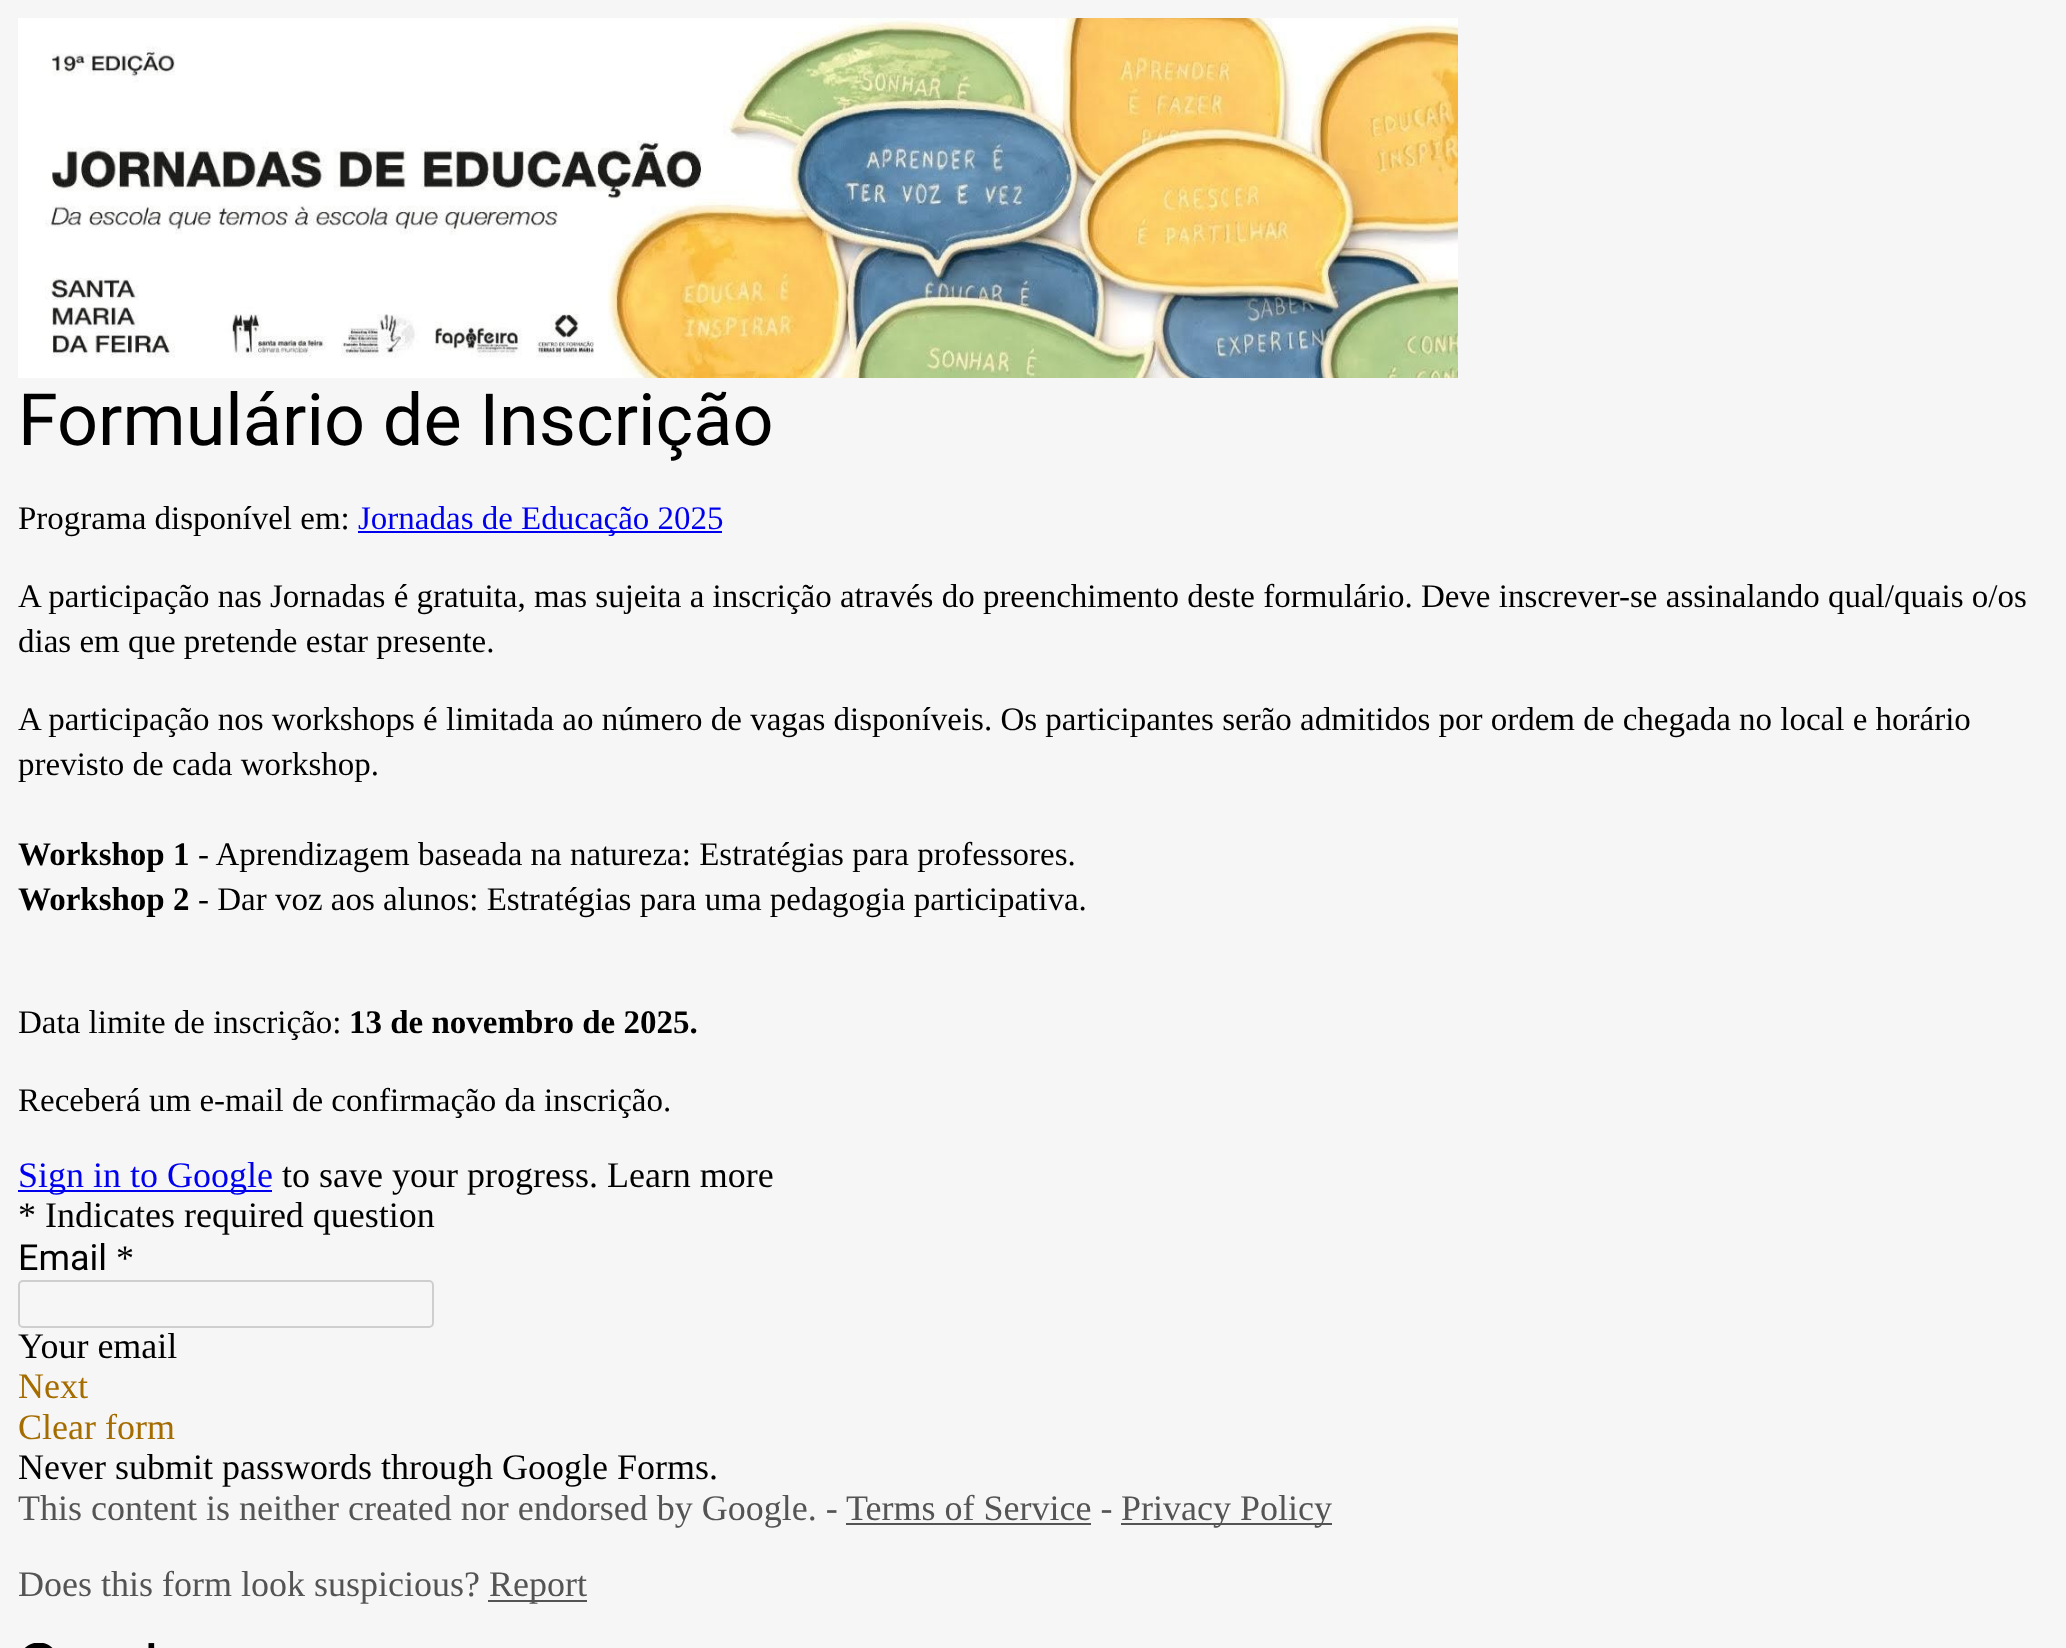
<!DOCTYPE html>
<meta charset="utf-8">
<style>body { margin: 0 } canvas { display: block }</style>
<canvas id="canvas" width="2066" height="1648"></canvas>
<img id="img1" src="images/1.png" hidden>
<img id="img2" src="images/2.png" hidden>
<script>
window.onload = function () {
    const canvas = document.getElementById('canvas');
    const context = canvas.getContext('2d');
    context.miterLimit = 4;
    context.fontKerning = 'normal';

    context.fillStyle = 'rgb(246, 246, 246)';
    context.fillRect(0, 0, 2066, 1648);
    context.drawImage(document.getElementById('img1'), 18, 18, 1440, 360);
    context.fillStyle = 'rgb(0, 0, 238)';
    context.fillRect(358, 531, 364, 2);
    context.fillRect(18, 1190, 254, 2);
    context.beginPath();
    context.roundRect(19, 1281, 414, 46, 4);
    context.strokeStyle = 'rgb(206, 206, 206)';
    context.lineWidth = 2;
    context.stroke();
    context.fillStyle = 'rgb(84, 84, 84)';
    context.fillRect(846, 1523, 245, 2);
    context.fillRect(1121, 1523, 211, 2);
    context.fillRect(488, 1600, 99, 2);
    context.drawImage(document.getElementById('img2'), 25, 1643, 130, 5);
    context.font = '72px Roboto';
    context.fillStyle = 'rgb(0, 0, 0)';
    context.fillText('Formulário de Inscrição', 18, 445);
    context.font = '33px Liberation Serif';
    context.fillText('Programa disponível em:', 18, 529);
    context.fillStyle = 'rgb(0, 0, 238)';
    context.fillText('Jornadas de Educação 2025', 358, 529);
    context.fillStyle = 'rgb(0, 0, 0)';
    context.fillText('A participação nas Jornadas é gratuita, mas sujeita a inscrição através do preenchimento deste formulário. Deve inscrever-se assinalando qual/quais o/os', 18, 607);
    context.fillText('dias em que pretende estar presente.', 18, 652);
    context.fillText('A participação nos workshops é limitada ao número de vagas disponíveis. Os participantes serão admitidos por ordem de chegada no local e horário', 18, 730);
    context.fillText('previsto de cada workshop.', 18, 775);
    context.font = 'bold 33px Liberation Serif';
    context.fillText('Workshop 1', 18, 865);
    context.font = '33px Liberation Serif';
    context.fillText('- Aprendizagem baseada na natureza: Estratégias para professores.', 198, 865);
    context.font = 'bold 33px Liberation Serif';
    context.fillText('Workshop 2', 18, 910);
    context.font = '33px Liberation Serif';
    context.fillText('- Dar voz aos alunos: Estratégias para uma pedagogia participativa.', 198, 910);
    context.fillText('Data limite de inscrição:', 18, 1033);
    context.font = 'bold 33px Liberation Serif';
    context.fillText('13 de novembro de 2025.', 349, 1033);
    context.font = '33px Liberation Serif';
    context.fillText('Receberá um e-mail de confirmação da inscrição.', 18, 1111);
    context.font = '36px Liberation Serif';
    context.fillStyle = 'rgb(0, 0, 238)';
    context.fillText('Sign in to Google', 18, 1187);
    context.fillStyle = 'rgb(0, 0, 0)';
    context.fillText('to save your progress. Learn more', 282, 1187);
    context.fillText('* Indicates required question', 18, 1227);
    context.font = '36px Roboto';
    context.fillText('Email', 18, 1270);
    context.font = '36px Liberation Serif';
    context.fillText('*', 116, 1270);
    context.fillText('Your email', 18, 1358);
    context.fillStyle = 'rgb(165, 108, 0)';
    context.fillText('Next', 18, 1398);
    context.fillText('Clear form', 18, 1439);
    context.fillStyle = 'rgb(0, 0, 0)';
    context.fillText('Never submit passwords through Google Forms.', 18, 1479);
    context.fillStyle = 'rgb(84, 84, 84)';
    context.fillText('This content is neither created nor endorsed by Google. -', 18, 1520);
    context.fillText('Terms of Service -', 846, 1520);
    context.fillText('Privacy Policy', 1121, 1520);
    context.fillText('Does this form look suspicious?', 18, 1596);
    context.fillText('Report', 489, 1596);
};
</script>
